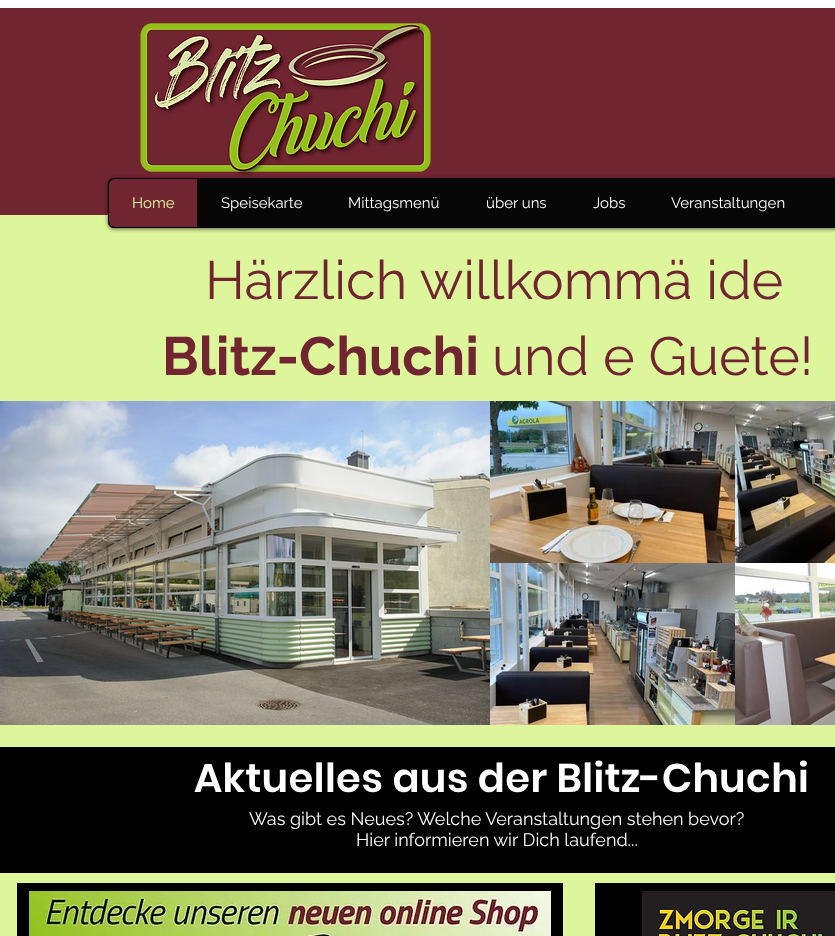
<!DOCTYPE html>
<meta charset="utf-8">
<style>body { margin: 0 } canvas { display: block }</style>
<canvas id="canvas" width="835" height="936"></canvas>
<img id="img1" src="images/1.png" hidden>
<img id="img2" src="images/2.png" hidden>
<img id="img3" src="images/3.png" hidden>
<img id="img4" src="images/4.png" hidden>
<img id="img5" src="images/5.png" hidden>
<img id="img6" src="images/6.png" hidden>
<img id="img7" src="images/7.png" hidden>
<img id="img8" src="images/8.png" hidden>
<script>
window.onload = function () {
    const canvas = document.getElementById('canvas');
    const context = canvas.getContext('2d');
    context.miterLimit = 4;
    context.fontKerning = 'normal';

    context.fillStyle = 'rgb(221, 246, 156)';
    context.fillRect(0, 0, 835, 936);
    context.fillStyle = 'rgb(255, 255, 255)';
    context.fillRect(0, 0, 835, 8);
    context.fillStyle = 'rgb(112, 37, 49)';
    context.fillRect(0, 8, 835, 207);
    context.drawImage(document.getElementById('img1'), 140, 23, 291, 152);
    context.fillStyle = 'rgba(0, 0, 0, 0.6)';
    context.filter = 'blur(2px)';
    context.beginPath();
    context.roundRect(108, 179, 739, 50, 6);
    context.fill();
    context.filter = 'none';
    context.fillStyle = 'rgb(7, 7, 7)';
    context.beginPath();
    context.roundRect(108, 178, 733, 50, 6);
    context.fill();
    context.beginPath();
    context.roundRect(108.5, 178.5, 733, 49, 5.5);
    context.strokeStyle = 'rgba(0, 0, 0, 0.67)';
    context.stroke();
    context.fillStyle = 'rgb(112, 37, 49)';
    context.beginPath();
    context.roundRect(109, 179, 88, 48, [6, 0, 0, 6]);
    context.fill();
    context.drawImage(document.getElementById('img2'), 0, 401, 490, 324);
    context.drawImage(document.getElementById('img3'), 490, 401, 245, 162);
    context.drawImage(document.getElementById('img4'), 490, 563, 245, 162);
    context.drawImage(document.getElementById('img5'), 735, 401, 100, 162);
    context.drawImage(document.getElementById('img6'), 735, 563, 100, 162);
    context.fillStyle = 'rgb(0, 0, 0)';
    context.fillRect(0, 747, 835, 126);
    context.fillRect(17, 883, 546, 53);
    context.drawImage(document.getElementById('img7'), 29, 891, 522, 45);
    context.fillRect(595, 883, 240, 53);
    context.drawImage(document.getElementById('img8'), 642, 891, 193, 45);
    context.font = '15px "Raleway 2"';
    context.fillStyle = 'rgb(226, 249, 164)';
    context.fillText('Home', 132, 208);
    context.fillStyle = 'rgb(255, 255, 255)';
    context.fillText('Speisekarte', 221, 208);
    context.fillText('Mittagsmenü', 348, 208);
    context.fillText('über uns', 486, 208);
    context.fillText('Jobs', 593, 208);
    context.fillText('Veranstaltungen', 671, 208);
    context.font = '54px Raleway';
    context.fillStyle = 'rgb(112, 37, 49)';
    context.fillText('Härzlich willkommä ide', 205, 299);
    context.font = 'bold 54px Raleway';
    context.fillText('Blitz-Chuchi', 162, 375);
    context.font = '54px Raleway';
    context.fillText('und e Guete!', 492, 375);
    context.letterSpacing = '0.4px';
    context.font = '600 40px Poppins';
    context.fillStyle = 'rgb(255, 255, 255)';
    context.fillText('Aktuelles aus der Blitz-Chuchi', 194, 792);
    context.letterSpacing = '0px';
    context.font = '18px "Raleway 2"';
    context.fillText('Was gibt es Neues? Welche Veranstaltungen stehen bevor?', 249, 825);
    context.fillText('Hier informieren wir Dich laufend...', 356, 846);
};
</script>
